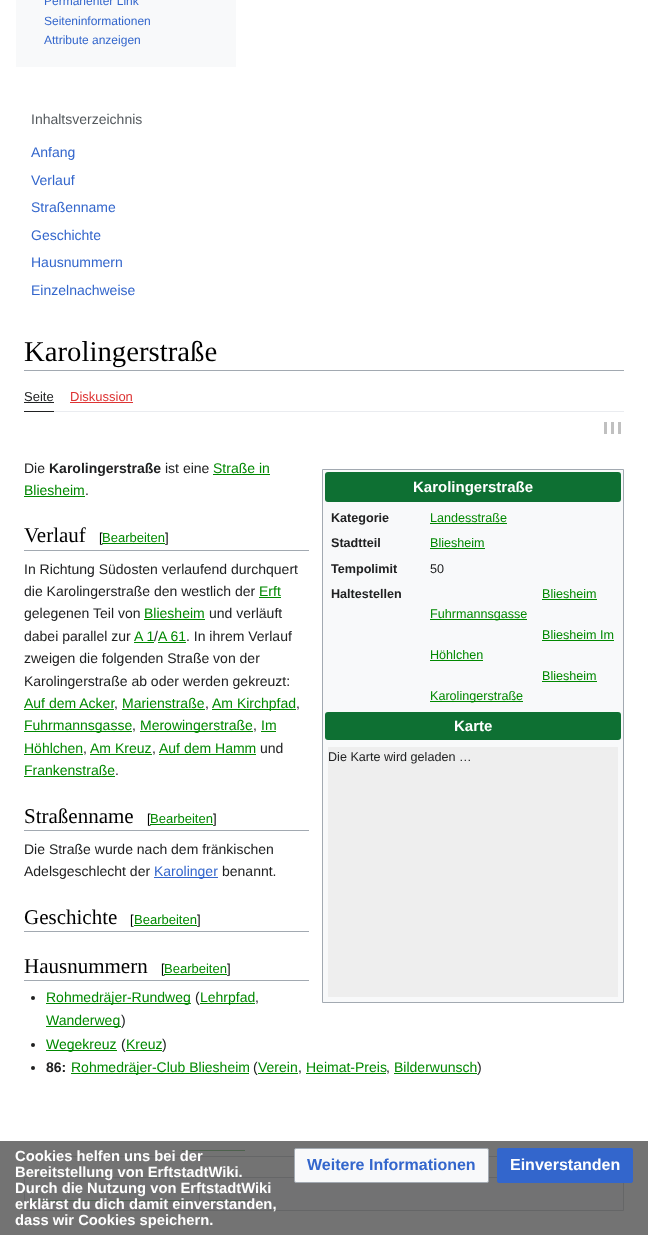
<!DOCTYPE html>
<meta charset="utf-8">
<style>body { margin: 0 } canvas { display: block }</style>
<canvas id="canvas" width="648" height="1235"></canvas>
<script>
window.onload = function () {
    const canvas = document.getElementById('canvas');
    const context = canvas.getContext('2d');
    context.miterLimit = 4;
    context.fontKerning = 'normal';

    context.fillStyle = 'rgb(255, 255, 255)';
    context.fillRect(0, 0, 648, 1235);
    context.fillStyle = 'rgb(248, 249, 250)';
    context.fillRect(16, 0, 220, 67);
    context.fillStyle = 'rgb(162, 169, 177)';
    context.fillRect(24, 370, 600, 1);
    context.fillStyle = 'rgb(234, 236, 240)';
    context.fillRect(54, 411, 570, 1);
    context.fillStyle = 'rgb(32, 33, 34)';
    context.fillRect(24, 411, 30, 1);
    context.fillRect(24, 402, 30, 1);
    context.fillStyle = 'rgb(221, 51, 51)';
    context.fillRect(70, 402, 63, 1);
    context.fillStyle = 'rgb(192, 192, 192)';
    context.fillRect(611, 422, 3, 12);
    context.fillRect(604, 422, 3, 12);
    context.fillRect(618, 422, 3, 12);
    context.fillStyle = 'rgb(0, 136, 0)';
    context.fillRect(213, 474, 57, 1);
    context.fillRect(24, 496, 61, 1);
    context.fillStyle = 'rgb(248, 249, 250)';
    context.beginPath();
    context.rect(322.5, 469.5, 301, 533);
    context.fill();
    context.strokeStyle = 'rgb(162, 169, 177)';
    context.stroke();
    context.fillStyle = 'rgb(14, 112, 51)';
    context.beginPath();
    context.roundRect(325, 472, 296, 30, 3);
    context.fill();
    context.fillStyle = 'rgb(0, 136, 0)';
    context.fillRect(430, 523, 77, 1);
    context.fillRect(430, 548, 55, 1);
    context.fillRect(542, 599, 55, 1);
    context.fillRect(430, 619, 97, 1);
    context.fillRect(542, 640, 72, 1);
    context.fillRect(430, 660, 53, 1);
    context.fillRect(542, 681, 55, 1);
    context.fillRect(430, 701, 93, 1);
    context.fillStyle = 'rgb(14, 112, 51)';
    context.beginPath();
    context.roundRect(325, 712, 296, 28, 3);
    context.fill();
    context.fillStyle = 'rgb(238, 238, 238)';
    context.fillRect(328, 747, 290, 250);
    context.fillStyle = 'rgb(162, 169, 177)';
    context.fillRect(24, 550, 285, 1);
    context.fillStyle = 'rgb(0, 136, 0)';
    context.fillRect(259, 597, 22, 1);
    context.fillRect(144, 619, 61, 1);
    context.fillRect(134, 642, 20, 1);
    context.fillRect(158, 642, 28, 1);
    context.fillRect(24, 709, 90, 1);
    context.fillRect(122, 709, 83, 1);
    context.fillRect(212, 709, 84, 1);
    context.fillRect(24, 731, 108, 1);
    context.fillRect(140, 731, 113, 1);
    context.fillRect(261, 731, 15, 1);
    context.fillRect(24, 754, 59, 1);
    context.fillRect(90, 754, 62, 1);
    context.fillRect(159, 754, 97, 1);
    context.fillRect(24, 776, 91, 1);
    context.fillStyle = 'rgb(162, 169, 177)';
    context.fillRect(24, 830, 285, 1);
    context.fillStyle = 'rgb(51, 102, 204)';
    context.fillRect(154, 877, 64, 1);
    context.fillStyle = 'rgb(162, 169, 177)';
    context.fillRect(24, 931, 285, 1);
    context.fillStyle = 'rgb(0, 136, 0)';
    context.fillRect(134, 925, 63, 1);
    context.fillStyle = 'rgb(162, 169, 177)';
    context.fillRect(24, 980, 285, 1);
    context.fillStyle = 'rgb(32, 33, 34)';
    context.beginPath();
    context.arc(33, 998, 2, 0, 2 * Math.PI);
    context.fill();
    context.fillStyle = 'rgb(0, 136, 0)';
    context.fillRect(46, 1003, 145, 1);
    context.fillRect(200, 1003, 55, 1);
    context.fillRect(46, 1026, 75, 1);
    context.fillStyle = 'rgb(32, 33, 34)';
    context.beginPath();
    context.arc(33, 1045, 2, 0, 2 * Math.PI);
    context.fill();
    context.fillStyle = 'rgb(0, 136, 0)';
    context.fillRect(46, 1050, 71, 1);
    context.fillRect(126, 1050, 36, 1);
    context.fillStyle = 'rgb(32, 33, 34)';
    context.beginPath();
    context.arc(33, 1068, 2, 0, 2 * Math.PI);
    context.fill();
    context.fillStyle = 'rgb(0, 136, 0)';
    context.fillRect(71, 1073, 178, 1);
    context.fillRect(258, 1073, 40, 1);
    context.fillRect(306, 1073, 80, 1);
    context.fillRect(394, 1073, 83, 1);
    context.fillStyle = 'rgb(162, 169, 177)';
    context.fillRect(24, 1156, 473, 1);
    context.fillStyle = 'rgb(0, 136, 0)';
    context.fillRect(182, 1150, 63, 1);
    context.fillStyle = 'rgb(248, 249, 250)';
    context.beginPath();
    context.rect(24.5, 1177.5, 599, 33);
    context.fill();
    context.stroke();
    context.fillStyle = 'rgb(0, 136, 0)';
    context.fillRect(30, 1200, 68, 1);
    context.fillRect(109, 1200, 83, 1);
    context.fillStyle = 'rgb(162, 169, 177)';
    context.fillRect(199, 1186, 1, 17);
    context.fillStyle = 'rgb(0, 136, 0)';
    context.fillRect(207, 1200, 42, 1);
    context.fillStyle = 'rgba(90, 90, 90, 0.85)';
    context.fillRect(0, 1141, 648, 94);
    context.fillStyle = 'rgb(248, 249, 250)';
    context.beginPath();
    context.roundRect(294.5, 1148.5, 194, 34, 1.5);
    context.fill();
    context.stroke();
    context.fillStyle = 'rgb(51, 102, 204)';
    context.beginPath();
    context.roundRect(497.5, 1148.5, 135, 34, 1.5);
    context.fill();
    context.strokeStyle = 'rgb(51, 102, 204)';
    context.stroke();
    context.font = '12px Liberation Sans';
    context.fillText('Permanenter Link', 44, 5);
    context.fillText('Seiteninformationen', 44, 25);
    context.fillText('Attribute anzeigen', 44, 44);
    context.font = '14px Liberation Sans';
    context.fillStyle = 'rgb(84, 89, 93)';
    context.fillText('Inhaltsverzeichnis', 31, 124);
    context.fillStyle = 'rgb(51, 102, 204)';
    context.fillText('Anfang', 31, 157);
    context.fillText('Verlauf', 31, 185);
    context.fillText('Straßenname', 31, 212);
    context.fillText('Geschichte', 31, 240);
    context.fillText('Hausnummern', 31, 267);
    context.fillText('Einzelnachweise', 31, 295);
    context.font = '28.75px Liberation Serif';
    context.fillStyle = 'rgb(0, 0, 0)';
    context.fillText('Karolingerstraße', 24, 361);
    context.font = '13px Liberation Sans';
    context.fillStyle = 'rgb(32, 33, 34)';
    context.fillText('Seite', 24, 401);
    context.fillStyle = 'rgb(221, 51, 51)';
    context.fillText('Diskussion', 70, 401);
    context.font = '14px Liberation Sans';
    context.fillStyle = 'rgb(32, 33, 34)';
    context.fillText('Die', 24, 473);
    context.font = 'bold 14px Liberation Sans';
    context.fillText('Karolingerstraße', 49, 473);
    context.font = '14px Liberation Sans';
    context.fillText('ist eine', 165, 473);
    context.fillStyle = 'rgb(0, 136, 0)';
    context.fillText('Straße in', 213, 473);
    context.fillText('Bliesheim', 24, 495);
    context.fillStyle = 'rgb(32, 33, 34)';
    context.fillText('.', 85, 495);
    context.font = 'bold 15px Liberation Sans';
    context.fillStyle = 'rgb(255, 255, 255)';
    context.fillText('Karolingerstraße', 413, 492);
    context.font = 'bold 12.6px Liberation Sans';
    context.fillStyle = 'rgb(32, 33, 34)';
    context.fillText('Kategorie', 331, 522);
    context.font = '12.6px Liberation Sans';
    context.fillStyle = 'rgb(0, 136, 0)';
    context.fillText('Landesstraße', 430, 522);
    context.font = 'bold 12.6px Liberation Sans';
    context.fillStyle = 'rgb(32, 33, 34)';
    context.fillText('Stadtteil', 331, 547);
    context.font = '12.6px Liberation Sans';
    context.fillStyle = 'rgb(0, 136, 0)';
    context.fillText('Bliesheim', 430, 547);
    context.font = 'bold 12.6px Liberation Sans';
    context.fillStyle = 'rgb(32, 33, 34)';
    context.fillText('Tempolimit', 331, 573);
    context.font = '12.6px Liberation Sans';
    context.fillText('50', 430, 573);
    context.font = 'bold 12.6px Liberation Sans';
    context.fillText('Haltestellen', 331, 598);
    context.font = '12.6px Liberation Sans';
    context.fillStyle = 'rgb(0, 136, 0)';
    context.fillText('Bliesheim', 542, 598);
    context.fillText('Fuhrmannsgasse', 430, 618);
    context.fillText('Bliesheim Im', 542, 639);
    context.fillText('Höhlchen', 430, 659);
    context.fillText('Bliesheim', 542, 680);
    context.fillText('Karolingerstraße', 430, 700);
    context.font = 'bold 15px Liberation Sans';
    context.fillStyle = 'rgb(255, 255, 255)';
    context.fillText('Karte', 454, 731);
    context.font = '12.6px Liberation Sans';
    context.fillStyle = 'rgb(32, 33, 34)';
    context.fillText('Die Karte wird geladen …', 328, 761);
    context.font = '21px Liberation Serif';
    context.fillStyle = 'rgb(0, 0, 0)';
    context.fillText('Verlauf', 24, 542);
    context.font = '13px Liberation Sans';
    context.fillText('[', 99, 542);
    context.fillStyle = 'rgb(0, 136, 0)';
    context.fillRect(102, 543, 63, 1);
    context.fillText('Bearbeiten', 102, 542);
    context.fillStyle = 'rgb(0, 0, 0)';
    context.fillText(']', 165, 542);
    context.font = '14px Liberation Sans';
    context.fillStyle = 'rgb(32, 33, 34)';
    context.fillText('In Richtung Südosten verlaufend durchquert', 24, 574);
    context.fillText('die Karolingerstraße den westlich der', 24, 596);
    context.fillStyle = 'rgb(0, 136, 0)';
    context.fillText('Erft', 259, 596);
    context.fillStyle = 'rgb(32, 33, 34)';
    context.fillText('gelegenen Teil von', 24, 618);
    context.fillStyle = 'rgb(0, 136, 0)';
    context.fillText('Bliesheim', 144, 618);
    context.fillStyle = 'rgb(32, 33, 34)';
    context.fillText('und verläuft', 209, 618);
    context.fillText('dabei parallel zur', 24, 641);
    context.fillStyle = 'rgb(0, 136, 0)';
    context.fillText('A 1', 134, 641);
    context.fillStyle = 'rgb(32, 33, 34)';
    context.fillText('/', 154, 641);
    context.fillStyle = 'rgb(0, 136, 0)';
    context.fillText('A 61', 158, 641);
    context.fillStyle = 'rgb(32, 33, 34)';
    context.fillText('. In ihrem Verlauf', 186, 641);
    context.fillText('zweigen die folgenden Straße von der', 24, 663);
    context.fillText('Karolingerstraße ab oder werden gekreuzt:', 24, 686);
    context.fillStyle = 'rgb(0, 136, 0)';
    context.fillText('Auf dem Acker', 24, 708);
    context.fillStyle = 'rgb(32, 33, 34)';
    context.fillText(',', 114, 708);
    context.fillStyle = 'rgb(0, 136, 0)';
    context.fillText('Marienstraße', 122, 708);
    context.fillStyle = 'rgb(32, 33, 34)';
    context.fillText(',', 205, 708);
    context.fillStyle = 'rgb(0, 136, 0)';
    context.fillText('Am Kirchpfad', 212, 708);
    context.fillStyle = 'rgb(32, 33, 34)';
    context.fillText(',', 296, 708);
    context.fillStyle = 'rgb(0, 136, 0)';
    context.fillText('Fuhrmannsgasse', 24, 730);
    context.fillStyle = 'rgb(32, 33, 34)';
    context.fillText(',', 132, 730);
    context.fillStyle = 'rgb(0, 136, 0)';
    context.fillText('Merowingerstraße', 140, 730);
    context.fillStyle = 'rgb(32, 33, 34)';
    context.fillText(',', 253, 730);
    context.fillStyle = 'rgb(0, 136, 0)';
    context.fillText('Im', 261, 730);
    context.fillText('Höhlchen', 24, 753);
    context.fillStyle = 'rgb(32, 33, 34)';
    context.fillText(',', 83, 753);
    context.fillStyle = 'rgb(0, 136, 0)';
    context.fillText('Am Kreuz', 90, 753);
    context.fillStyle = 'rgb(32, 33, 34)';
    context.fillText(',', 152, 753);
    context.fillStyle = 'rgb(0, 136, 0)';
    context.fillText('Auf dem Hamm', 159, 753);
    context.fillStyle = 'rgb(32, 33, 34)';
    context.fillText('und', 260, 753);
    context.fillStyle = 'rgb(0, 136, 0)';
    context.fillText('Frankenstraße', 24, 775);
    context.fillStyle = 'rgb(32, 33, 34)';
    context.fillText('.', 115, 775);
    context.font = '21px Liberation Serif';
    context.fillStyle = 'rgb(0, 0, 0)';
    context.fillText('Straßenname', 24, 823);
    context.font = '13px Liberation Sans';
    context.fillText('[', 147, 823);
    context.fillStyle = 'rgb(0, 136, 0)';
    context.fillRect(150, 824, 63, 1);
    context.fillText('Bearbeiten', 150, 823);
    context.fillStyle = 'rgb(0, 0, 0)';
    context.fillText(']', 213, 823);
    context.font = '14px Liberation Sans';
    context.fillStyle = 'rgb(32, 33, 34)';
    context.fillText('Die Straße wurde nach dem fränkischen', 24, 854);
    context.fillText('Adelsgeschlecht der', 24, 876);
    context.fillStyle = 'rgb(51, 102, 204)';
    context.fillText('Karolinger', 154, 876);
    context.fillStyle = 'rgb(32, 33, 34)';
    context.fillText('benannt.', 222, 876);
    context.font = '21px Liberation Serif';
    context.fillStyle = 'rgb(0, 0, 0)';
    context.fillText('Geschichte', 24, 924);
    context.font = '13px Liberation Sans';
    context.fillText('[', 130, 924);
    context.fillStyle = 'rgb(0, 136, 0)';
    context.fillText('Bearbeiten', 134, 924);
    context.fillStyle = 'rgb(0, 0, 0)';
    context.fillText(']', 197, 924);
    context.font = '21px Liberation Serif';
    context.fillText('Hausnummern', 24, 973);
    context.font = '13px Liberation Sans';
    context.fillText('[', 161, 973);
    context.fillStyle = 'rgb(0, 136, 0)';
    context.fillRect(164, 974, 63, 1);
    context.fillText('Bearbeiten', 164, 973);
    context.fillStyle = 'rgb(0, 0, 0)';
    context.fillText(']', 227, 973);
    context.font = '14px Liberation Sans';
    context.fillStyle = 'rgb(0, 136, 0)';
    context.fillText('Rohmedräjer-Rundweg', 46, 1002);
    context.fillStyle = 'rgb(32, 33, 34)';
    context.fillText('(', 195, 1002);
    context.fillStyle = 'rgb(0, 136, 0)';
    context.fillText('Lehrpfad', 200, 1002);
    context.fillStyle = 'rgb(32, 33, 34)';
    context.fillText(',', 255, 1002);
    context.fillStyle = 'rgb(0, 136, 0)';
    context.fillText('Wanderweg', 46, 1025);
    context.fillStyle = 'rgb(32, 33, 34)';
    context.fillText(')', 121, 1025);
    context.fillStyle = 'rgb(0, 136, 0)';
    context.fillText('Wegekreuz', 46, 1049);
    context.fillStyle = 'rgb(32, 33, 34)';
    context.fillText('(', 121, 1049);
    context.fillStyle = 'rgb(0, 136, 0)';
    context.fillText('Kreuz', 126, 1049);
    context.fillStyle = 'rgb(32, 33, 34)';
    context.fillText(')', 162, 1049);
    context.font = 'bold 14px Liberation Sans';
    context.fillText('86:', 46, 1072);
    context.font = '14px Liberation Sans';
    context.fillStyle = 'rgb(0, 136, 0)';
    context.fillText('Rohmedräjer-Club Bliesheim', 71, 1072);
    context.fillStyle = 'rgb(32, 33, 34)';
    context.fillText('(', 253, 1072);
    context.fillStyle = 'rgb(0, 136, 0)';
    context.fillText('Verein', 258, 1072);
    context.fillText('Heimat-Preis', 306, 1072);
    context.fillText('Bilderwunsch', 394, 1072);
    context.fillStyle = 'rgb(32, 33, 34)';
    context.fillText(')', 477, 1072);
    context.fillText(',', 298, 1072);
    context.fillText(',', 386, 1072);
    context.font = 'bold 14.75px Liberation Sans';
    context.fillStyle = 'rgb(255, 255, 255)';
    context.fillText('Cookies helfen uns bei der', 15, 1161);
    context.fillText('Bereitstellung von ErftstadtWiki.', 15, 1177);
    context.fillText('Durch die Nutzung von ErftstadtWiki', 15, 1193);
    context.fillText('erklärst du dich damit einverstanden,', 15, 1209);
    context.fillText('dass wir Cookies speichern.', 15, 1225);
    context.font = 'bold 16px Liberation Sans';
    context.fillStyle = 'rgb(51, 102, 204)';
    context.fillText('Weitere Informationen', 307, 1170);
    context.fillStyle = 'rgb(255, 255, 255)';
    context.fillText('Einverstanden', 510, 1170);
};
</script>
